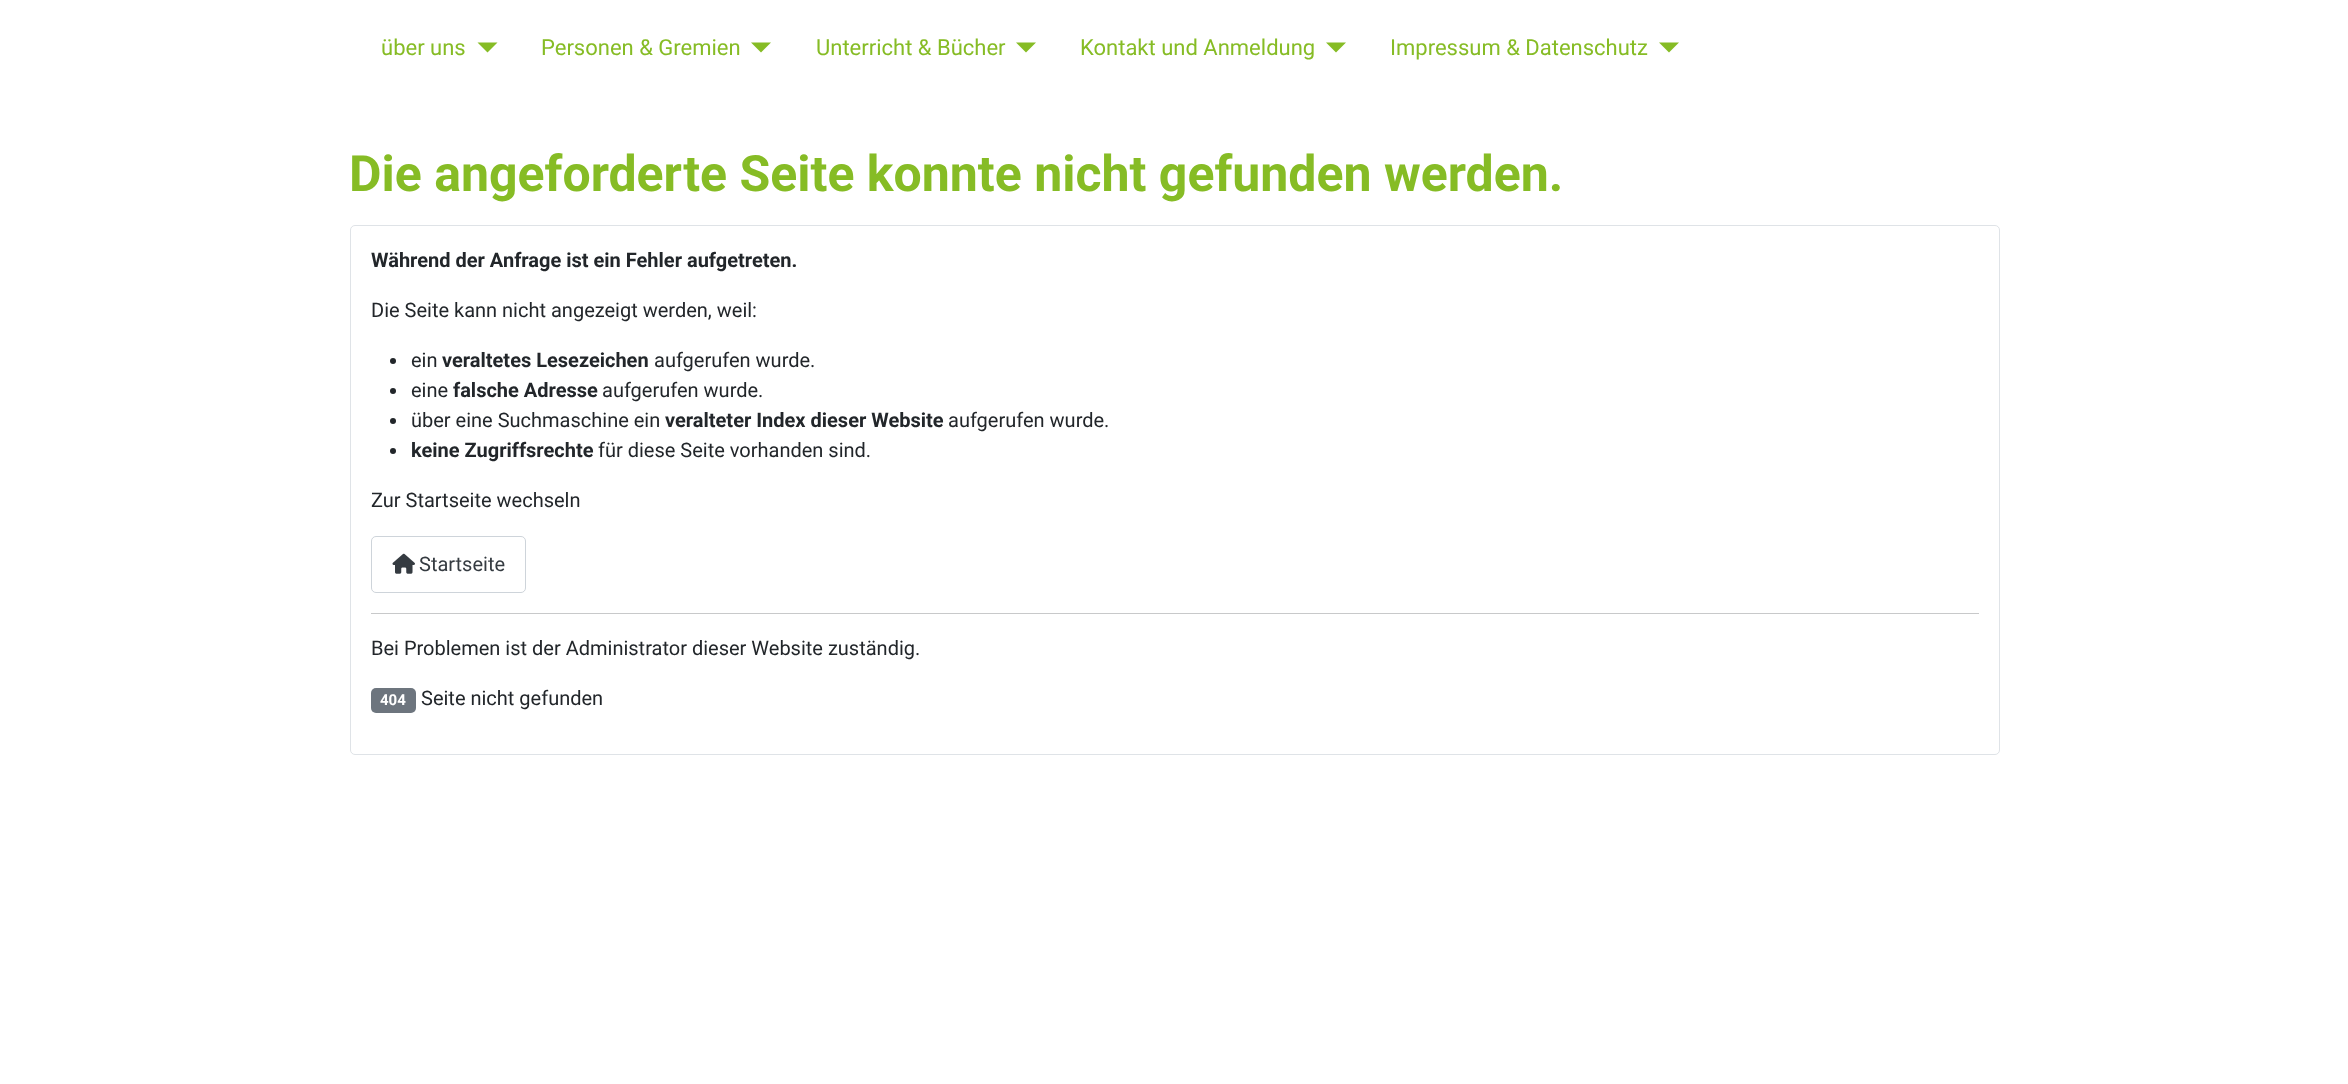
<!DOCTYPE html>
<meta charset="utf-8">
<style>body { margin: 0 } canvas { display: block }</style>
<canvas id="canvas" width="2348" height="1084"></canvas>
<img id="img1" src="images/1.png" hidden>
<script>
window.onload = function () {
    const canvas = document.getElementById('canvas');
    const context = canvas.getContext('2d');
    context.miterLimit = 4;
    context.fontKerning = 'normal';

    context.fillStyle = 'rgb(255, 255, 255)';
    context.fillRect(0, 0, 2348, 1084);
    context.fillStyle = 'rgb(134, 188, 37)';
    context.beginPath();
    context.moveTo(477.5, 42.5);
    context.lineTo(497.5, 42.5);
    context.lineTo(487.5, 52.5);
    context.closePath();
    context.fill();
    context.beginPath();
    context.moveTo(751, 42.5);
    context.lineTo(771, 42.5);
    context.lineTo(761, 52.5);
    context.closePath();
    context.fill();
    context.beginPath();
    context.moveTo(1016, 42.5);
    context.lineTo(1036, 42.5);
    context.lineTo(1026, 52.5);
    context.closePath();
    context.fill();
    context.beginPath();
    context.moveTo(1326, 42.5);
    context.lineTo(1346, 42.5);
    context.lineTo(1336, 52.5);
    context.closePath();
    context.fill();
    context.beginPath();
    context.moveTo(1659, 42.5);
    context.lineTo(1679, 42.5);
    context.lineTo(1669, 52.5);
    context.closePath();
    context.fill();
    context.beginPath();
    context.roundRect(350.5, 225.5, 1649, 529, 4.5);
    context.strokeStyle = 'rgb(223, 227, 231)';
    context.stroke();
    context.fillStyle = 'rgb(34, 38, 42)';
    context.beginPath();
    context.arc(393, 361, 3, 0, 2 * Math.PI);
    context.fill();
    context.beginPath();
    context.arc(393, 391, 3, 0, 2 * Math.PI);
    context.fill();
    context.beginPath();
    context.arc(393, 421, 3, 0, 2 * Math.PI);
    context.fill();
    context.beginPath();
    context.arc(393, 451, 3, 0, 2 * Math.PI);
    context.fill();
    context.beginPath();
    context.roundRect(371.5, 536.5, 154, 56, 4.5);
    context.strokeStyle = 'rgb(206, 212, 218)';
    context.stroke();
    context.drawImage(document.getElementById('img1'), 392, 553, 23, 21);
    context.fillStyle = 'rgb(200, 201, 202)';
    context.fillRect(371, 613, 1608, 1);
    context.fillStyle = 'rgb(109, 117, 126)';
    context.beginPath();
    context.roundRect(371, 688, 45, 25, 5);
    context.fill();
    context.font = '22px Roboto';
    context.fillStyle = 'rgb(134, 188, 37)';
    context.fillText('über uns', 381, 55);
    context.fillText('Personen & Gremien', 541, 55);
    context.fillText('Unterricht & Bücher', 816, 55);
    context.fillText('Kontakt und Anmeldung', 1080, 55);
    context.fillText('Impressum & Datenschutz', 1390, 55);
    context.font = 'bold 50px Roboto';
    context.fillText('Die angeforderte Seite konnte nicht gefunden werden.', 349, 191);
    context.font = 'bold 20px Roboto';
    context.fillStyle = 'rgb(34, 38, 42)';
    context.fillText('Während der Anfrage ist ein Fehler aufgetreten.', 371, 267);
    context.font = '20px Roboto';
    context.fillText('Die Seite kann nicht angezeigt werden, weil:', 371, 317);
    context.fillText('ein', 411, 367);
    context.font = 'bold 20px Roboto';
    context.fillText('veraltetes Lesezeichen', 442, 367);
    context.font = '20px Roboto';
    context.fillText('aufgerufen wurde.', 654, 367);
    context.fillText('eine', 411, 397);
    context.font = 'bold 20px Roboto';
    context.fillText('falsche Adresse', 453, 397);
    context.font = '20px Roboto';
    context.fillText('aufgerufen wurde.', 602, 397);
    context.fillText('über eine Suchmaschine ein', 411, 427);
    context.font = 'bold 20px Roboto';
    context.fillText('veralteter Index dieser Website', 665, 427);
    context.font = '20px Roboto';
    context.fillText('aufgerufen wurde.', 948, 427);
    context.font = 'bold 20px Roboto';
    context.fillText('keine Zugriffsrechte', 411, 457);
    context.font = '20px Roboto';
    context.fillText('für diese Seite vorhanden sind.', 598, 457);
    context.fillText('Zur Startseite wechseln', 371, 507);
    context.fillStyle = 'rgb(53, 59, 65)';
    context.fillText('Startseite', 419, 571);
    context.fillStyle = 'rgb(34, 38, 42)';
    context.fillText('Bei Problemen ist der Administrator dieser Website zuständig.', 371, 655);
    context.font = 'bold 15px Roboto';
    context.fillStyle = 'rgb(255, 255, 255)';
    context.fillText('404', 380, 705);
    context.font = '20px Roboto';
    context.fillStyle = 'rgb(34, 38, 42)';
    context.fillText('Seite nicht gefunden', 421, 705);
};
</script>
